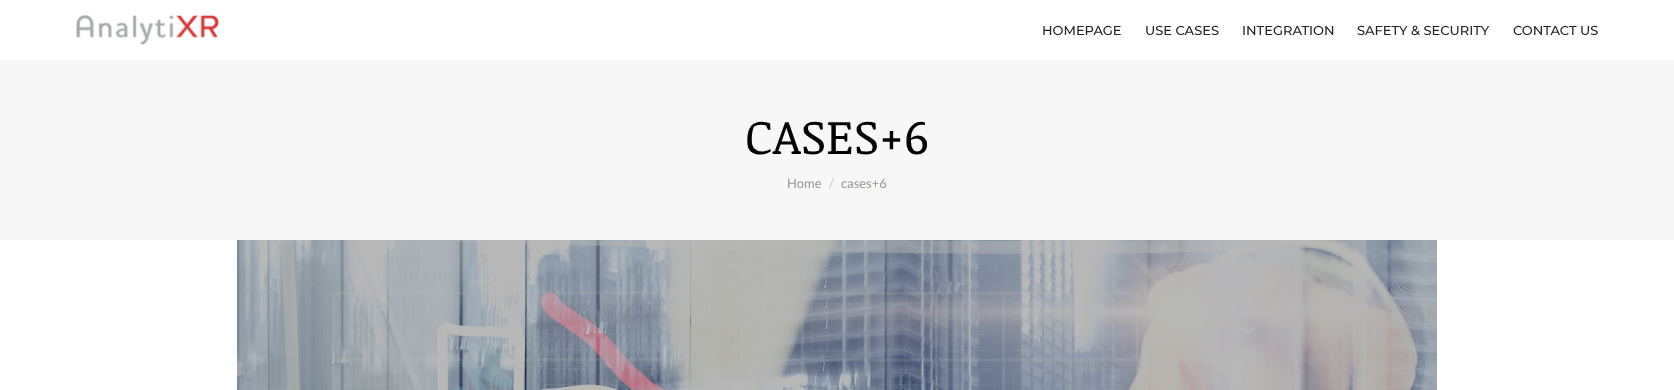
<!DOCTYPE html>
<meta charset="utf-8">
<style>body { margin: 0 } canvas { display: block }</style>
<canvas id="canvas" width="1674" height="390"></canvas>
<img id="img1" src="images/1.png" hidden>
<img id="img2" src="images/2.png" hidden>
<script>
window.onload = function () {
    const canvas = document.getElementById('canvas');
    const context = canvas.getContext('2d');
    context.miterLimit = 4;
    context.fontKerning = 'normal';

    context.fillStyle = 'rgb(255, 255, 255)';
    context.fillRect(0, 0, 1674, 390);
    context.drawImage(document.getElementById('img1'), 76, 15, 143, 30);
    context.fillStyle = 'rgb(247, 247, 247)';
    context.fillRect(0, 60, 1674, 180);
    context.drawImage(document.getElementById('img2'), 237, 240, 1200, 150);
    context.font = '500 13px Montserrat';
    context.fillStyle = 'rgb(35, 35, 35)';
    context.fillText('HOMEPAGE', 1042, 35);
    context.fillText('USE CASES', 1145, 35);
    context.fillText('INTEGRATION', 1242, 35);
    context.fillText('SAFETY & SECURITY', 1357, 35);
    context.fillText('CONTACT US', 1513, 35);
    context.font = '48px Noticia Text';
    context.fillStyle = 'rgb(0, 0, 0)';
    context.fillText('CASES+6', 745, 154);
    context.font = '13px Lato';
    context.fillStyle = 'rgb(154, 152, 145)';
    context.fillText('Home', 787, 188);
    context.fillStyle = 'rgb(201, 200, 196)';
    context.fillText('/', 829, 188);
    context.fillStyle = 'rgb(154, 152, 145)';
    context.fillText('cases+6', 841, 188);
};
</script>
